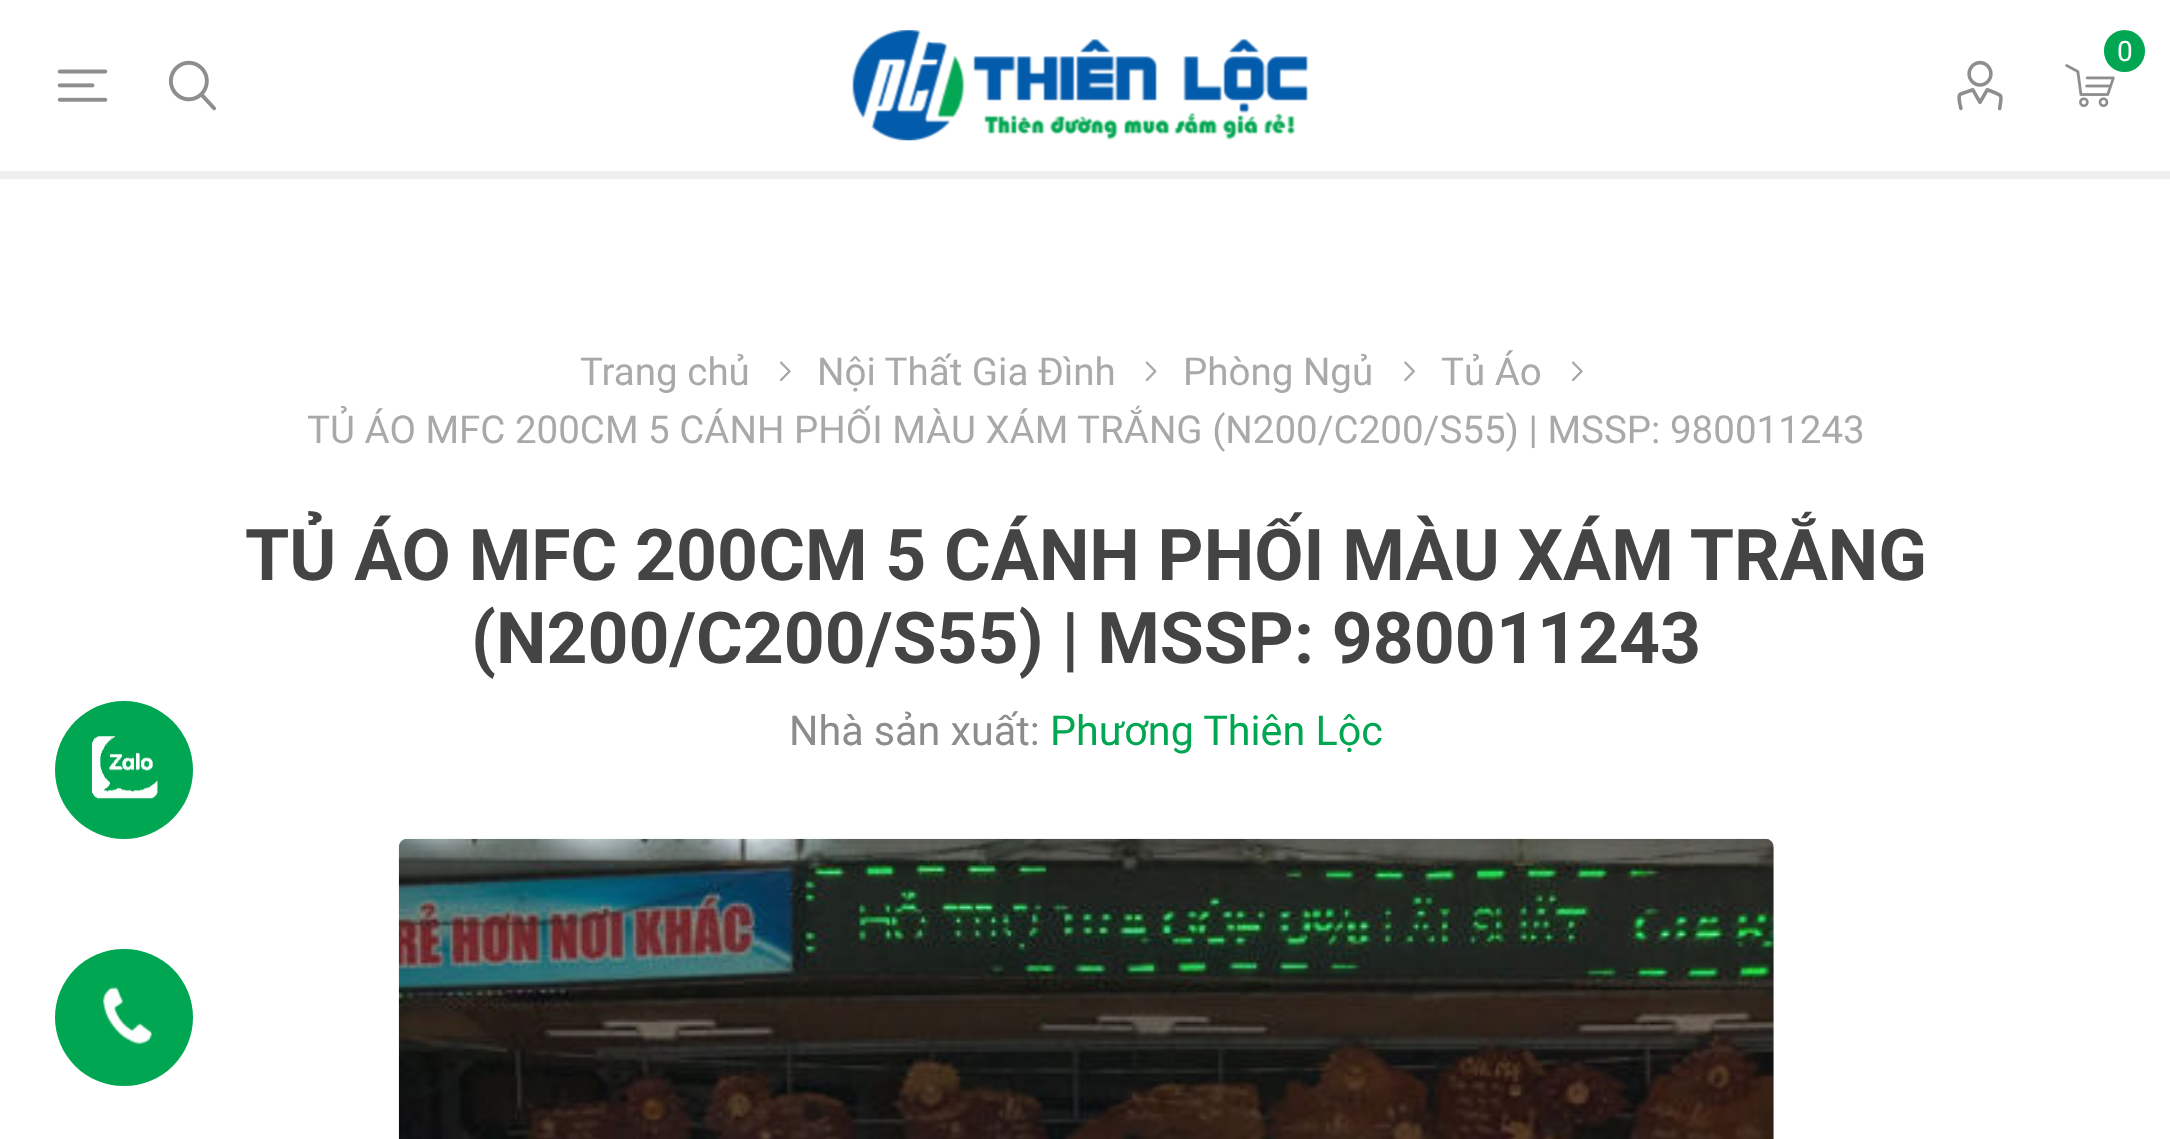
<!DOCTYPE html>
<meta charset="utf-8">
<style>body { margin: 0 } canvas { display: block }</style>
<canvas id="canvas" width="2170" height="1139"></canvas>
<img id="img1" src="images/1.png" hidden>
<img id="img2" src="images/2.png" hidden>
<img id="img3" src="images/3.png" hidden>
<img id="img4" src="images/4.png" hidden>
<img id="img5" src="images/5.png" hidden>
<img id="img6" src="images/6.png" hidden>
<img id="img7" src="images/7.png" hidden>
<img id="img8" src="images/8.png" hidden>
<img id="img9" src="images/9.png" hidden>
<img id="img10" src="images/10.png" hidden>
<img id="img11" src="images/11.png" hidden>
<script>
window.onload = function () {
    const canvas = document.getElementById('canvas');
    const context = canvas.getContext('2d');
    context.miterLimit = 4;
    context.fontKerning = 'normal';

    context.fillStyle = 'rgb(255, 255, 255)';
    context.fillRect(0, 0, 2170, 1139);
    context.fillStyle = 'rgb(238, 238, 238)';
    context.fillRect(0, 171, 2170, 8);
    context.drawImage(document.getElementById('img1'), 852, 30, 457, 111);
    context.drawImage(document.getElementById('img2'), 2065, 64, 50, 43);
    context.fillStyle = 'rgb(0, 166, 81)';
    context.beginPath();
    context.roundRect(2104, 30, 41, 42, 20.5);
    context.fill();
    context.drawImage(document.getElementById('img3'), 57, 69, 51, 33);
    context.drawImage(document.getElementById('img4'), 168, 60, 48, 51);
    context.drawImage(document.getElementById('img5'), 1957, 60, 46, 51);
    context.drawImage(document.getElementById('img6'), 780, 361, 11, 21);
    context.drawImage(document.getElementById('img7'), 1145, 361, 12, 21);
    context.drawImage(document.getElementById('img8'), 1404, 361, 11, 21);
    context.drawImage(document.getElementById('img6'), 1572, 361, 11, 21);
    context.drawImage(document.getElementById('img9'), 398, 838, 1376, 301);
    context.beginPath();
    context.arc(124, 770, 69, 0, 2 * Math.PI);
    context.fill();
    context.drawImage(document.getElementById('img10'), 92, 736, 66, 63);
    context.beginPath();
    context.roundRect(55, 949, 138, 137, 68.5);
    context.fill();
    context.drawImage(document.getElementById('img11'), 103, 986, 49, 59);
    context.font = '28px Roboto';
    context.fillStyle = 'rgb(255, 255, 255)';
    context.fillText('0', 2117, 61);
    context.font = '38.5px Roboto';
    context.fillStyle = 'rgb(169, 169, 169)';
    context.fillText('Trang chủ', 580, 385);
    context.fillText('Nội Thất Gia Đình', 817, 385);
    context.fillText('Phòng Ngủ', 1183, 385);
    context.fillText('Tủ Áo', 1441, 385);
    context.fillText('TỦ ÁO MFC 200CM 5 CÁNH PHỐI MÀU XÁM TRẮNG (N200/C200/S55) | MSSP: 980011243', 307, 443);
    context.font = 'bold 71.5px Roboto';
    context.fillStyle = 'rgb(68, 68, 68)';
    context.fillText('TỦ ÁO MFC 200CM 5 CÁNH PHỐI MÀU XÁM TRẮNG', 245, 580);
    context.fillText('(N200/C200/S55) | MSSP: 980011243', 471, 663);
    context.font = '41.25px Roboto';
    context.fillStyle = 'rgb(140, 140, 140)';
    context.fillText('Nhà sản xuất:', 789, 745);
    context.fillStyle = 'rgb(0, 166, 81)';
    context.fillText('Phương Thiên Lộc', 1050, 745);
};
</script>
